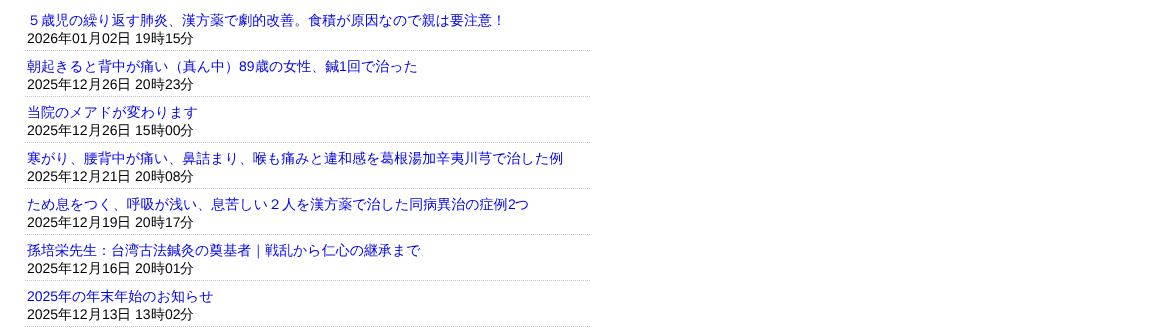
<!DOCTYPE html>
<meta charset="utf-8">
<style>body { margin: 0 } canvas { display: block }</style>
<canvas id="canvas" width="1168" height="335"></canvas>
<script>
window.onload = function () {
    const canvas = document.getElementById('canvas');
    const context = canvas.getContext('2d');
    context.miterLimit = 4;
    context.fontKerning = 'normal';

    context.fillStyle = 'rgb(255, 255, 255)';
    context.fillRect(0, 0, 1168, 335);
    context.beginPath();
    context.moveTo(25, 50.5);
    context.lineTo(590, 50.5);
    context.strokeStyle = 'rgb(197, 197, 197)';
    context.setLineDash([1, 1]);
    context.stroke();
    context.beginPath();
    context.moveTo(25, 96.5);
    context.lineTo(590, 96.5);
    context.stroke();
    context.beginPath();
    context.moveTo(25, 142.5);
    context.lineTo(590, 142.5);
    context.stroke();
    context.beginPath();
    context.moveTo(25, 188.5);
    context.lineTo(590, 188.5);
    context.stroke();
    context.beginPath();
    context.moveTo(25, 234.5);
    context.lineTo(590, 234.5);
    context.stroke();
    context.beginPath();
    context.moveTo(25, 280.5);
    context.lineTo(590, 280.5);
    context.stroke();
    context.beginPath();
    context.moveTo(25, 326.5);
    context.lineTo(590, 326.5);
    context.stroke();
    context.font = '500 14px WenQuanYi Zen Hei';
    context.fillStyle = 'rgb(0, 0, 238)';
    context.fillText('５歳児の繰り返す肺炎、漢方薬で劇的改善。食積が原因なので親は要注意！', 27, 25);
    context.font = '14px Liberation Sans';
    context.fillStyle = 'rgb(0, 0, 0)';
    context.fillText('2026', 27, 43);
    context.font = '500 14px WenQuanYi Zen Hei';
    context.fillText('年', 58, 43);
    context.font = '14px Liberation Sans';
    context.fillText('01', 72, 43);
    context.font = '500 14px WenQuanYi Zen Hei';
    context.fillText('月', 88, 43);
    context.font = '14px Liberation Sans';
    context.fillText('02', 102, 43);
    context.font = '500 14px WenQuanYi Zen Hei';
    context.fillText('日', 117, 43);
    context.font = '14px Liberation Sans';
    context.fillText('19', 135, 43);
    context.font = '500 14px WenQuanYi Zen Hei';
    context.fillText('時', 151, 43);
    context.font = '14px Liberation Sans';
    context.fillText('15', 165, 43);
    context.font = '500 14px WenQuanYi Zen Hei';
    context.fillText('分', 180, 43);
    context.fillStyle = 'rgb(0, 0, 238)';
    context.fillText('朝起きると背中が痛い（真ん中）', 27, 71);
    context.font = '14px Liberation Sans';
    context.fillText('89', 239, 71);
    context.font = '500 14px WenQuanYi Zen Hei';
    context.fillText('歳の女性、鍼', 255, 71);
    context.font = '14px Liberation Sans';
    context.fillText('1', 339, 71);
    context.font = '500 14px WenQuanYi Zen Hei';
    context.fillText('回で治った', 347, 71);
    context.font = '14px Liberation Sans';
    context.fillStyle = 'rgb(0, 0, 0)';
    context.fillText('2025', 27, 89);
    context.font = '500 14px WenQuanYi Zen Hei';
    context.fillText('年', 58, 89);
    context.font = '14px Liberation Sans';
    context.fillText('12', 72, 89);
    context.font = '500 14px WenQuanYi Zen Hei';
    context.fillText('月', 88, 89);
    context.font = '14px Liberation Sans';
    context.fillText('26', 102, 89);
    context.font = '500 14px WenQuanYi Zen Hei';
    context.fillText('日', 117, 89);
    context.font = '14px Liberation Sans';
    context.fillText('20', 135, 89);
    context.font = '500 14px WenQuanYi Zen Hei';
    context.fillText('時', 151, 89);
    context.font = '14px Liberation Sans';
    context.fillText('23', 165, 89);
    context.font = '500 14px WenQuanYi Zen Hei';
    context.fillText('分', 180, 89);
    context.fillStyle = 'rgb(0, 0, 238)';
    context.fillText('当院のメアドが変わります', 27, 117);
    context.font = '14px Liberation Sans';
    context.fillStyle = 'rgb(0, 0, 0)';
    context.fillText('2025', 27, 135);
    context.font = '500 14px WenQuanYi Zen Hei';
    context.fillText('年', 58, 135);
    context.font = '14px Liberation Sans';
    context.fillText('12', 72, 135);
    context.font = '500 14px WenQuanYi Zen Hei';
    context.fillText('月', 88, 135);
    context.font = '14px Liberation Sans';
    context.fillText('26', 102, 135);
    context.font = '500 14px WenQuanYi Zen Hei';
    context.fillText('日', 117, 135);
    context.font = '14px Liberation Sans';
    context.fillText('15', 135, 135);
    context.font = '500 14px WenQuanYi Zen Hei';
    context.fillText('時', 151, 135);
    context.font = '14px Liberation Sans';
    context.fillText('00', 165, 135);
    context.font = '500 14px WenQuanYi Zen Hei';
    context.fillText('分', 180, 135);
    context.fillStyle = 'rgb(0, 0, 238)';
    context.fillText('寒がり、腰背中が痛い、鼻詰まり、喉も痛みと違和感を葛根湯加辛夷川芎で治した例', 27, 163);
    context.font = '14px Liberation Sans';
    context.fillStyle = 'rgb(0, 0, 0)';
    context.fillText('2025', 27, 181);
    context.font = '500 14px WenQuanYi Zen Hei';
    context.fillText('年', 58, 181);
    context.font = '14px Liberation Sans';
    context.fillText('12', 72, 181);
    context.font = '500 14px WenQuanYi Zen Hei';
    context.fillText('月', 88, 181);
    context.font = '14px Liberation Sans';
    context.fillText('21', 102, 181);
    context.font = '500 14px WenQuanYi Zen Hei';
    context.fillText('日', 117, 181);
    context.font = '14px Liberation Sans';
    context.fillText('20', 135, 181);
    context.font = '500 14px WenQuanYi Zen Hei';
    context.fillText('時', 151, 181);
    context.font = '14px Liberation Sans';
    context.fillText('08', 165, 181);
    context.font = '500 14px WenQuanYi Zen Hei';
    context.fillText('分', 180, 181);
    context.fillStyle = 'rgb(0, 0, 238)';
    context.fillText('ため息をつく、呼吸が浅い、息苦しい２人を漢方薬で治した同病異治の症例', 27, 209);
    context.font = '14px Liberation Sans';
    context.fillText('2', 508, 209);
    context.font = '500 14px WenQuanYi Zen Hei';
    context.fillText('つ', 515, 209);
    context.font = '14px Liberation Sans';
    context.fillStyle = 'rgb(0, 0, 0)';
    context.fillText('2025', 27, 227);
    context.font = '500 14px WenQuanYi Zen Hei';
    context.fillText('年', 58, 227);
    context.font = '14px Liberation Sans';
    context.fillText('12', 72, 227);
    context.font = '500 14px WenQuanYi Zen Hei';
    context.fillText('月', 88, 227);
    context.font = '14px Liberation Sans';
    context.fillText('19', 102, 227);
    context.font = '500 14px WenQuanYi Zen Hei';
    context.fillText('日', 117, 227);
    context.font = '14px Liberation Sans';
    context.fillText('20', 135, 227);
    context.font = '500 14px WenQuanYi Zen Hei';
    context.fillText('時', 151, 227);
    context.font = '14px Liberation Sans';
    context.fillText('17', 165, 227);
    context.font = '500 14px WenQuanYi Zen Hei';
    context.fillText('分', 180, 227);
    context.fillStyle = 'rgb(0, 0, 238)';
    context.fillText('孫培栄先生：台湾古法鍼灸の奠基者｜戦乱から仁心の継承まで', 27, 255);
    context.font = '14px Liberation Sans';
    context.fillStyle = 'rgb(0, 0, 0)';
    context.fillText('2025', 27, 273);
    context.font = '500 14px WenQuanYi Zen Hei';
    context.fillText('年', 58, 273);
    context.font = '14px Liberation Sans';
    context.fillText('12', 72, 273);
    context.font = '500 14px WenQuanYi Zen Hei';
    context.fillText('月', 88, 273);
    context.font = '14px Liberation Sans';
    context.fillText('16', 102, 273);
    context.font = '500 14px WenQuanYi Zen Hei';
    context.fillText('日', 117, 273);
    context.font = '14px Liberation Sans';
    context.fillText('20', 135, 273);
    context.font = '500 14px WenQuanYi Zen Hei';
    context.fillText('時', 151, 273);
    context.font = '14px Liberation Sans';
    context.fillText('01', 165, 273);
    context.font = '500 14px WenQuanYi Zen Hei';
    context.fillText('分', 180, 273);
    context.font = '14px Liberation Sans';
    context.fillStyle = 'rgb(0, 0, 238)';
    context.fillText('2025', 27, 301);
    context.font = '500 14px WenQuanYi Zen Hei';
    context.fillText('年の年末年始のお知らせ', 58, 301);
    context.font = '14px Liberation Sans';
    context.fillStyle = 'rgb(0, 0, 0)';
    context.fillText('2025', 27, 319);
    context.font = '500 14px WenQuanYi Zen Hei';
    context.fillText('年', 58, 319);
    context.font = '14px Liberation Sans';
    context.fillText('12', 72, 319);
    context.font = '500 14px WenQuanYi Zen Hei';
    context.fillText('月', 88, 319);
    context.font = '14px Liberation Sans';
    context.fillText('13', 102, 319);
    context.font = '500 14px WenQuanYi Zen Hei';
    context.fillText('日', 117, 319);
    context.font = '14px Liberation Sans';
    context.fillText('13', 135, 319);
    context.font = '500 14px WenQuanYi Zen Hei';
    context.fillText('時', 151, 319);
    context.font = '14px Liberation Sans';
    context.fillText('02', 165, 319);
    context.font = '500 14px WenQuanYi Zen Hei';
    context.fillText('分', 180, 319);
};
</script>
